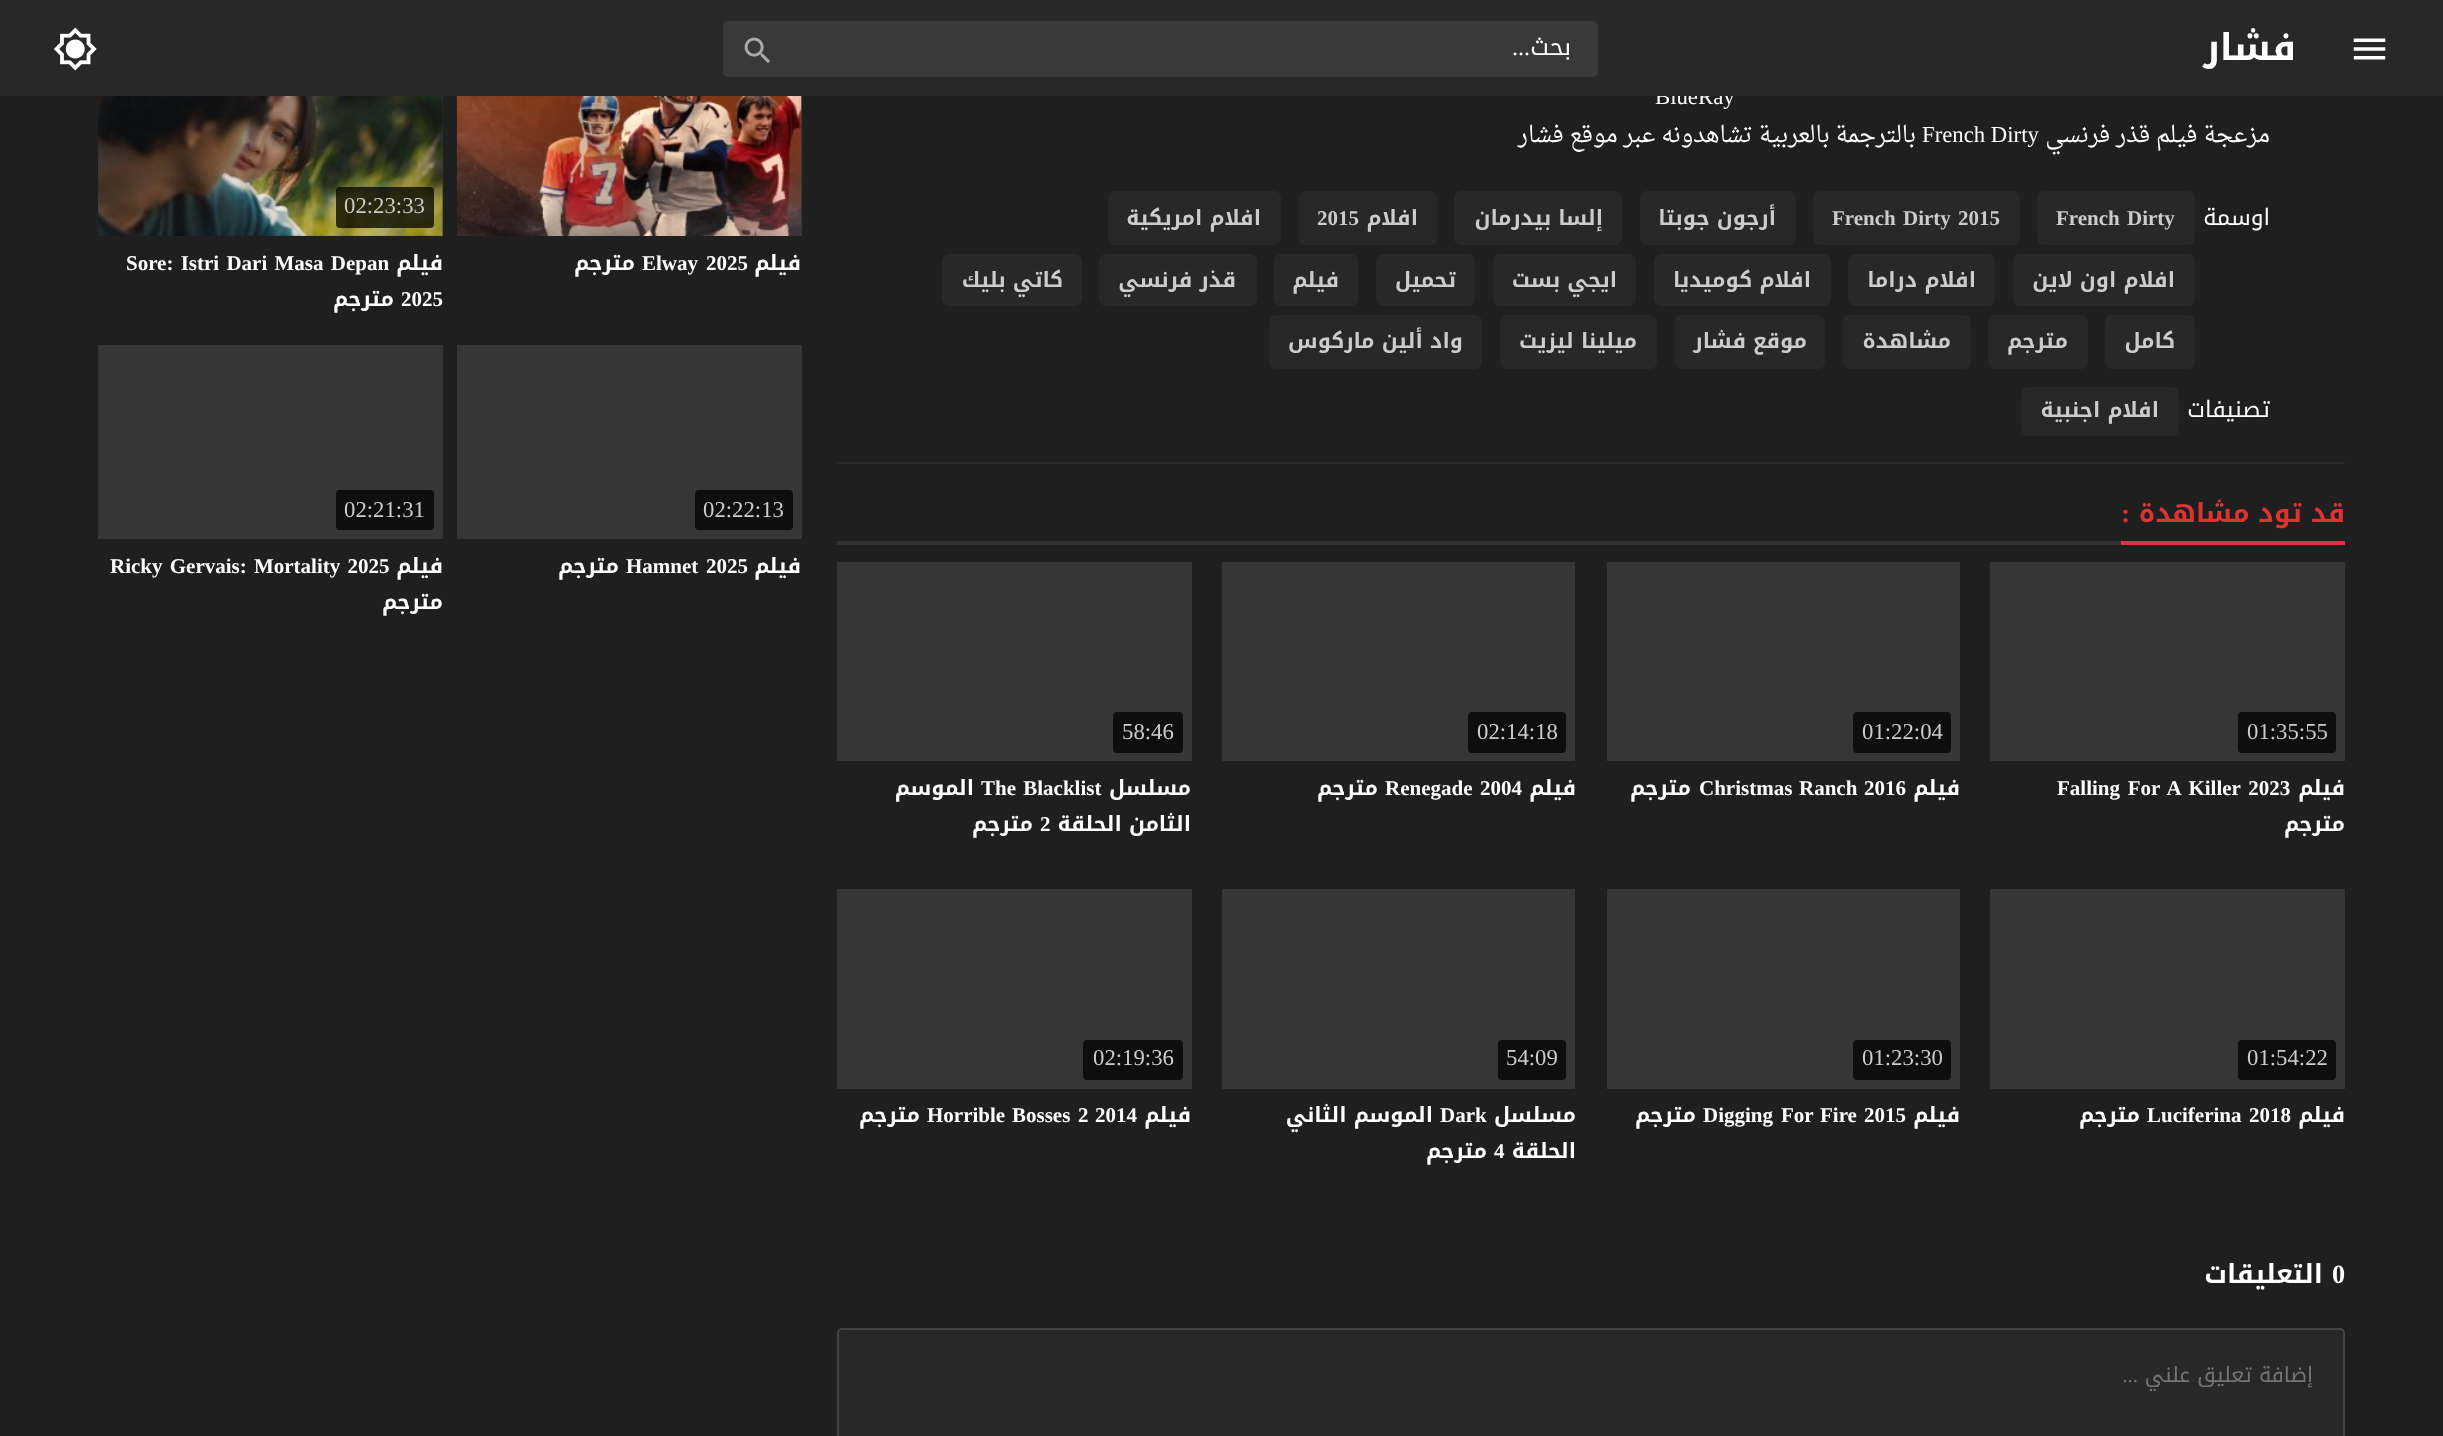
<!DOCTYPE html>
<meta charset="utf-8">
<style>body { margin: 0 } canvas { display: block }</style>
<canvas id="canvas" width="2443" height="1436"></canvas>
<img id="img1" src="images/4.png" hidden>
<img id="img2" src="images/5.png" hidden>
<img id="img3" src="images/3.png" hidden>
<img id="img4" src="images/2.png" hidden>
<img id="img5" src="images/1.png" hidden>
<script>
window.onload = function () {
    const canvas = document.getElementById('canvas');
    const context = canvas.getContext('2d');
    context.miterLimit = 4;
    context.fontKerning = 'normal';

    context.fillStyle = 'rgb(31, 31, 31)';
    context.fillRect(0, 0, 2443, 1436);
    context.fillStyle = 'rgb(41, 41, 41)';
    context.fillRect(837, 462, 1508, 2);
    context.fillStyle = 'rgb(40, 40, 40)';
    context.beginPath();
    context.roundRect(2037, 191, 158, 54, 7);
    context.fill();
    context.beginPath();
    context.roundRect(1813, 191, 207, 54, 7);
    context.fill();
    context.beginPath();
    context.roundRect(1640, 191, 156, 54, 7);
    context.fill();
    context.beginPath();
    context.roundRect(1454, 191, 168, 54, 7);
    context.fill();
    context.beginPath();
    context.roundRect(1299, 191, 138, 54, 7);
    context.fill();
    context.beginPath();
    context.roundRect(1108, 191, 173, 54, 7);
    context.fill();
    context.beginPath();
    context.roundRect(2013, 254, 182, 52, 7);
    context.fill();
    context.beginPath();
    context.roundRect(1848, 254, 147, 52, 7);
    context.fill();
    context.beginPath();
    context.roundRect(1654, 254, 177, 52, 7);
    context.fill();
    context.beginPath();
    context.roundRect(1493, 254, 143, 52, 7);
    context.fill();
    context.beginPath();
    context.roundRect(1376, 254, 99, 52, 7);
    context.fill();
    context.beginPath();
    context.roundRect(1274, 254, 84, 52, 7);
    context.fill();
    context.beginPath();
    context.roundRect(1099, 254, 158, 52, 7);
    context.fill();
    context.beginPath();
    context.roundRect(942, 254, 140, 52, 7);
    context.fill();
    context.beginPath();
    context.roundRect(2105, 315, 90, 54, 7);
    context.fill();
    context.beginPath();
    context.roundRect(1988, 315, 100, 54, 7);
    context.fill();
    context.beginPath();
    context.roundRect(1843, 315, 128, 54, 7);
    context.fill();
    context.beginPath();
    context.roundRect(1675, 315, 150, 54, 7);
    context.fill();
    context.beginPath();
    context.roundRect(1500, 315, 157, 54, 7);
    context.fill();
    context.beginPath();
    context.roundRect(1269, 315, 213, 54, 7);
    context.fill();
    context.beginPath();
    context.roundRect(2021, 387, 158, 49, 7);
    context.fill();
    context.fillStyle = 'rgb(51, 51, 51)';
    context.fillRect(837, 541, 1284, 4);
    context.fillStyle = 'rgb(227, 48, 73)';
    context.fillRect(2121, 541, 224, 4);
    context.fillStyle = 'rgb(54, 54, 54)';
    context.fillRect(1990, 562, 355, 199);
    context.fillStyle = 'rgb(14, 14, 14)';
    context.beginPath();
    context.roundRect(2238, 712, 98, 41, 4);
    context.fill();
    context.fillStyle = 'rgb(54, 54, 54)';
    context.fillRect(1607, 562, 353, 199);
    context.fillStyle = 'rgb(14, 14, 14)';
    context.beginPath();
    context.roundRect(1853, 712, 98, 41, 4);
    context.fill();
    context.fillStyle = 'rgb(54, 54, 54)';
    context.fillRect(1222, 562, 353, 199);
    context.fillStyle = 'rgb(14, 14, 14)';
    context.beginPath();
    context.roundRect(1468, 712, 98, 41, 4);
    context.fill();
    context.fillStyle = 'rgb(54, 54, 54)';
    context.fillRect(837, 562, 355, 199);
    context.fillStyle = 'rgb(14, 14, 14)';
    context.beginPath();
    context.roundRect(1113, 712, 70, 41, 4);
    context.fill();
    context.fillStyle = 'rgb(54, 54, 54)';
    context.fillRect(1990, 889, 355, 200);
    context.fillStyle = 'rgb(14, 14, 14)';
    context.beginPath();
    context.roundRect(2238, 1040, 98, 40, 4);
    context.fill();
    context.fillStyle = 'rgb(54, 54, 54)';
    context.fillRect(1607, 889, 353, 200);
    context.fillStyle = 'rgb(14, 14, 14)';
    context.beginPath();
    context.roundRect(1853, 1040, 98, 40, 4);
    context.fill();
    context.fillStyle = 'rgb(54, 54, 54)';
    context.fillRect(1222, 889, 353, 200);
    context.fillStyle = 'rgb(14, 14, 14)';
    context.beginPath();
    context.roundRect(1498, 1040, 68, 40, 4);
    context.fill();
    context.fillStyle = 'rgb(54, 54, 54)';
    context.fillRect(837, 889, 355, 200);
    context.fillStyle = 'rgb(14, 14, 14)';
    context.beginPath();
    context.roundRect(1083, 1040, 100, 40, 4);
    context.fill();
    context.fillStyle = 'rgb(40, 40, 40)';
    context.beginPath();
    context.roundRect(838, 1329, 1506, 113, 4);
    context.fill();
    context.strokeStyle = 'rgb(68, 68, 68)';
    context.lineWidth = 2;
    context.stroke();
    context.fillStyle = 'rgb(54, 54, 54)';
    context.fillRect(801, 96, 1, 140);
    context.drawImage(document.getElementById('img1'), 456, 96, 346, 140);
    context.fillRect(442, 96, 1, 140);
    context.drawImage(document.getElementById('img2'), 98, 96, 345, 140);
    context.fillStyle = 'rgba(0, 0, 0, 0.75)';
    context.beginPath();
    context.roundRect(336, 187, 98, 41, 4);
    context.fill();
    context.fillStyle = 'rgb(54, 54, 54)';
    context.fillRect(457, 345, 345, 194);
    context.fillStyle = 'rgb(14, 14, 14)';
    context.beginPath();
    context.roundRect(695, 490, 98, 40, 4);
    context.fill();
    context.fillStyle = 'rgb(54, 54, 54)';
    context.fillRect(98, 345, 345, 194);
    context.fillStyle = 'rgb(14, 14, 14)';
    context.beginPath();
    context.roundRect(336, 490, 98, 40, 4);
    context.fill();
    context.font = '22.75px Liberation Serif';
    context.fillStyle = 'rgb(255, 255, 255)';
    context.fillText('BlueRay', 1655, 104);
    context.fillStyle = 'rgb(40, 40, 40)';
    context.fillRect(0, 0, 2443, 96);
    context.drawImage(document.getElementById('img3'), 54, 27, 43, 44);
    context.fillStyle = 'rgb(57, 57, 57)';
    context.beginPath();
    context.roundRect(723, 21, 87, 56, [5, 0, 0, 5]);
    context.fill();
    context.drawImage(document.getElementById('img4'), 744, 37, 26, 26);
    context.drawImage(document.getElementById('img5'), 2353, 38, 33, 22);
    context.direction = 'rtl';
    context.font = 'bold 37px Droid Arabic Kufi';
    context.fillStyle = 'rgb(255, 255, 255)';
    context.fillText('فشار', 2296, 60);
    context.fillStyle = 'rgb(57, 57, 57)';
    context.beginPath();
    context.roundRect(810, 21, 788, 56, [0, 5, 5, 0]);
    context.fill();
    context.font = '24px Droid Arabic Kufi';
    context.fillStyle = 'rgb(255, 255, 255)';
    context.fillText('بحث', 1571, 55);
    context.font = '24px Liberation Serif';
    context.fillText('...', 1530, 55);
    context.font = '22.75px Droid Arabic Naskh';
    context.fillText('مزعجة فيلم قذر فرنسي', 2270, 142);
    context.direction = 'ltr';
    context.font = '22.75px Liberation Serif';
    context.fillText('French Dirty', 1922, 142);
    context.direction = 'rtl';
    context.font = '22.75px Droid Arabic Naskh';
    context.fillText('بالترجمة بالعربية تشاهدونه عبر موقع فشار', 1916, 142);
    context.font = '22.75px Droid Arabic Kufi';
    context.fillText('اوسمة', 2270, 225);
    context.wordSpacing = '2px';
    context.direction = 'ltr';
    context.font = 'bold 21px Liberation Serif';
    context.fillStyle = 'rgb(204, 204, 204)';
    context.fillText('French Dirty', 2056, 225);
    context.fillText('French Dirty 2015', 1832, 225);
    context.wordSpacing = '0px';
    context.direction = 'rtl';
    context.font = 'bold 21px Droid Arabic Kufi';
    context.fillText('أرجون جوبتا', 1776, 225);
    context.fillText('إلسا بيدرمان', 1603, 225);
    context.fillText('افلام', 1418, 225);
    context.direction = 'ltr';
    context.font = 'bold 21px Liberation Serif';
    context.fillText('2015', 1317, 225);
    context.direction = 'rtl';
    context.font = 'bold 21px Droid Arabic Kufi';
    context.fillText('افلام امريكية', 1261, 225);
    context.fillText('افلام اون لاين', 2175, 287);
    context.fillText('افلام دراما', 1976, 287);
    context.fillText('افلام كوميديا', 1811, 287);
    context.fillText('ايجي بست', 1617, 287);
    context.fillText('تحميل', 1456, 287);
    context.fillText('فيلم', 1339, 287);
    context.fillText('قذر فرنسي', 1236, 287);
    context.fillText('كاتي بليك', 1063, 287);
    context.fillText('كامل', 2175, 348);
    context.fillText('مترجم', 2068, 348);
    context.fillText('مشاهدة', 1951, 348);
    context.fillText('موقع فشار', 1807, 348);
    context.fillText('ميلينا ليزيت', 1637, 348);
    context.fillText('واد ألين ماركوس', 1463, 348);
    context.font = '22.75px Droid Arabic Kufi';
    context.fillStyle = 'rgb(255, 255, 255)';
    context.fillText('تصنيفات', 2270, 417);
    context.font = 'bold 21px Droid Arabic Kufi';
    context.fillStyle = 'rgb(204, 204, 204)';
    context.fillText('افلام اجنبية', 2159, 417);
    context.font = 'bold 26.25px Droid Arabic Kufi';
    context.fillStyle = 'rgb(221, 51, 51)';
    context.fillText('قد تود مشاهدة', 2345, 522);
    context.font = 'bold 26.25px Liberation Serif';
    context.fillText(':', 2130, 522);
    context.direction = 'ltr';
    context.font = '22.75px Liberation Serif';
    context.fillStyle = 'rgb(204, 204, 204)';
    context.fillText('01:35:55', 2247, 739);
    context.direction = 'rtl';
    context.font = 'bold 21px Droid Arabic Kufi';
    context.fillStyle = 'rgb(255, 255, 255)';
    context.fillText('فيلم', 2345, 795);
    context.wordSpacing = '2.5px';
    context.direction = 'ltr';
    context.font = 'bold 21px Liberation Serif';
    context.fillText('Falling For A Killer 2023', 2057, 795);
    context.wordSpacing = '0px';
    context.direction = 'rtl';
    context.font = 'bold 21px Droid Arabic Kufi';
    context.fillText('مترجم', 2345, 831);
    context.direction = 'ltr';
    context.font = '22.75px Liberation Serif';
    context.fillStyle = 'rgb(204, 204, 204)';
    context.fillText('01:22:04', 1862, 739);
    context.direction = 'rtl';
    context.font = 'bold 21px Droid Arabic Kufi';
    context.fillStyle = 'rgb(255, 255, 255)';
    context.fillText('فيلم', 1960, 795);
    context.direction = 'ltr';
    context.font = 'bold 21px Liberation Serif';
    context.fillText('2016', 1864, 795);
    context.fillText('Ranch', 1799, 795);
    context.fillText('Christmas', 1699, 795);
    context.direction = 'rtl';
    context.font = 'bold 21px Droid Arabic Kufi';
    context.fillText('مترجم', 1691, 795);
    context.direction = 'ltr';
    context.font = '22.75px Liberation Serif';
    context.fillStyle = 'rgb(204, 204, 204)';
    context.fillText('02:14:18', 1477, 739);
    context.direction = 'rtl';
    context.font = 'bold 21px Droid Arabic Kufi';
    context.fillStyle = 'rgb(255, 255, 255)';
    context.fillText('فيلم', 1576, 795);
    context.direction = 'ltr';
    context.font = 'bold 21px Liberation Serif';
    context.fillText('2004', 1480, 795);
    context.fillText('Renegade', 1385, 795);
    context.direction = 'rtl';
    context.font = 'bold 21px Droid Arabic Kufi';
    context.fillText('مترجم', 1378, 795);
    context.direction = 'ltr';
    context.font = '22.75px Liberation Serif';
    context.fillStyle = 'rgb(204, 204, 204)';
    context.fillText('58:46', 1122, 739);
    context.direction = 'rtl';
    context.font = 'bold 21px Droid Arabic Kufi';
    context.fillStyle = 'rgb(255, 255, 255)';
    context.fillText('مسلسل', 1191, 795);
    context.wordSpacing = '2px';
    context.direction = 'ltr';
    context.font = 'bold 21px Liberation Serif';
    context.fillText('The Blacklist', 981, 795);
    context.wordSpacing = '0px';
    context.direction = 'rtl';
    context.font = 'bold 21px Droid Arabic Kufi';
    context.fillText('الموسم', 974, 795);
    context.fillText('الثامن الحلقة', 1191, 831);
    context.direction = 'ltr';
    context.font = 'bold 21px Liberation Serif';
    context.fillText('2', 1040, 831);
    context.direction = 'rtl';
    context.font = 'bold 21px Droid Arabic Kufi';
    context.fillText('مترجم', 1033, 831);
    context.direction = 'ltr';
    context.font = '22.75px Liberation Serif';
    context.fillStyle = 'rgb(204, 204, 204)';
    context.fillText('01:54:22', 2247, 1065);
    context.direction = 'rtl';
    context.font = 'bold 21px Droid Arabic Kufi';
    context.fillStyle = 'rgb(255, 255, 255)';
    context.fillText('فيلم', 2345, 1122);
    context.direction = 'ltr';
    context.font = 'bold 21px Liberation Serif';
    context.fillText('2018', 2249, 1122);
    context.fillText('Luciferina', 2147, 1122);
    context.direction = 'rtl';
    context.font = 'bold 21px Droid Arabic Kufi';
    context.fillText('مترجم', 2140, 1122);
    context.direction = 'ltr';
    context.font = '22.75px Liberation Serif';
    context.fillStyle = 'rgb(204, 204, 204)';
    context.fillText('01:23:30', 1862, 1065);
    context.direction = 'rtl';
    context.font = 'bold 21px Droid Arabic Kufi';
    context.fillStyle = 'rgb(255, 255, 255)';
    context.fillText('فيلم', 1960, 1122);
    context.direction = 'ltr';
    context.font = 'bold 21px Liberation Serif';
    context.fillText('2015', 1864, 1122);
    context.fillText('Fire', 1820, 1122);
    context.fillText('For', 1781, 1122);
    context.fillText('Digging', 1703, 1122);
    context.direction = 'rtl';
    context.font = 'bold 21px Droid Arabic Kufi';
    context.fillText('مترجم', 1696, 1122);
    context.direction = 'ltr';
    context.font = '22.75px Liberation Serif';
    context.fillStyle = 'rgb(204, 204, 204)';
    context.fillText('54:09', 1506, 1065);
    context.direction = 'rtl';
    context.font = 'bold 21px Droid Arabic Kufi';
    context.fillStyle = 'rgb(255, 255, 255)';
    context.fillText('مسلسل', 1576, 1122);
    context.direction = 'ltr';
    context.font = 'bold 21px Liberation Serif';
    context.fillText('Dark', 1440, 1122);
    context.direction = 'rtl';
    context.font = 'bold 21px Droid Arabic Kufi';
    context.fillText('الموسم الثاني', 1433, 1122);
    context.fillText('الحلقة', 1576, 1158);
    context.direction = 'ltr';
    context.font = 'bold 21px Liberation Serif';
    context.fillText('4', 1494, 1158);
    context.direction = 'rtl';
    context.font = 'bold 21px Droid Arabic Kufi';
    context.fillText('مترجم', 1487, 1158);
    context.direction = 'ltr';
    context.font = '22.75px Liberation Serif';
    context.fillStyle = 'rgb(204, 204, 204)';
    context.fillText('02:19:36', 1093, 1065);
    context.direction = 'rtl';
    context.font = 'bold 21px Droid Arabic Kufi';
    context.fillStyle = 'rgb(255, 255, 255)';
    context.fillText('فيلم', 1191, 1122);
    context.direction = 'ltr';
    context.font = 'bold 21px Liberation Serif';
    context.fillText('2014', 1095, 1122);
    context.fillText('2', 1078, 1122);
    context.fillText('Bosses', 1012, 1122);
    context.fillText('Horrible', 927, 1122);
    context.direction = 'rtl';
    context.font = 'bold 21px Droid Arabic Kufi';
    context.fillText('مترجم', 920, 1122);
    context.direction = 'ltr';
    context.font = 'bold 26.25px Liberation Serif';
    context.fillText('0', 2332, 1283);
    context.direction = 'rtl';
    context.font = 'bold 26.25px Droid Arabic Kufi';
    context.fillText('التعليقات', 2323, 1283);
    context.font = '21px Droid Arabic Kufi';
    context.fillStyle = 'rgb(117, 117, 117)';
    context.fillText('إضافة تعليق علني', 2313, 1382);
    context.font = '21px Liberation Serif';
    context.fillText('...', 2138, 1382);
    context.font = 'bold 21px Droid Arabic Kufi';
    context.fillStyle = 'rgb(255, 255, 255)';
    context.fillText('فيلم', 801, 270);
    context.direction = 'ltr';
    context.font = 'bold 21px Liberation Serif';
    context.fillText('2025', 706, 270);
    context.fillText('Elway', 642, 270);
    context.direction = 'rtl';
    context.font = 'bold 21px Droid Arabic Kufi';
    context.fillText('مترجم', 635, 270);
    context.direction = 'ltr';
    context.font = '22.75px Liberation Serif';
    context.fillStyle = 'rgb(202, 201, 196)';
    context.fillText('02:23:33', 344, 213);
    context.direction = 'rtl';
    context.font = 'bold 21px Droid Arabic Kufi';
    context.fillStyle = 'rgb(255, 255, 255)';
    context.fillText('فيلم', 443, 270);
    context.wordSpacing = '2px';
    context.direction = 'ltr';
    context.font = 'bold 21px Liberation Serif';
    context.fillText('Sore: Istri Dari Masa Depan', 126, 270);
    context.wordSpacing = '0px';
    context.fillText('2025', 401, 306);
    context.direction = 'rtl';
    context.font = 'bold 21px Droid Arabic Kufi';
    context.fillText('مترجم', 394, 306);
    context.direction = 'ltr';
    context.font = '22.75px Liberation Serif';
    context.fillStyle = 'rgb(204, 204, 204)';
    context.fillText('02:22:13', 703, 517);
    context.direction = 'rtl';
    context.font = 'bold 21px Droid Arabic Kufi';
    context.fillStyle = 'rgb(255, 255, 255)';
    context.fillText('فيلم', 801, 573);
    context.direction = 'ltr';
    context.font = 'bold 21px Liberation Serif';
    context.fillText('2025', 706, 573);
    context.fillText('Hamnet', 626, 573);
    context.direction = 'rtl';
    context.font = 'bold 21px Droid Arabic Kufi';
    context.fillText('مترجم', 619, 573);
    context.direction = 'ltr';
    context.font = '22.75px Liberation Serif';
    context.fillStyle = 'rgb(204, 204, 204)';
    context.fillText('02:21:31', 344, 517);
    context.direction = 'rtl';
    context.font = 'bold 21px Droid Arabic Kufi';
    context.fillStyle = 'rgb(255, 255, 255)';
    context.fillText('فيلم', 443, 573);
    context.wordSpacing = '2px';
    context.direction = 'ltr';
    context.font = 'bold 21px Liberation Serif';
    context.fillText('Ricky Gervais: Mortality 2025', 110, 573);
    context.wordSpacing = '0px';
    context.direction = 'rtl';
    context.font = 'bold 21px Droid Arabic Kufi';
    context.fillText('مترجم', 443, 609);
};
</script>
